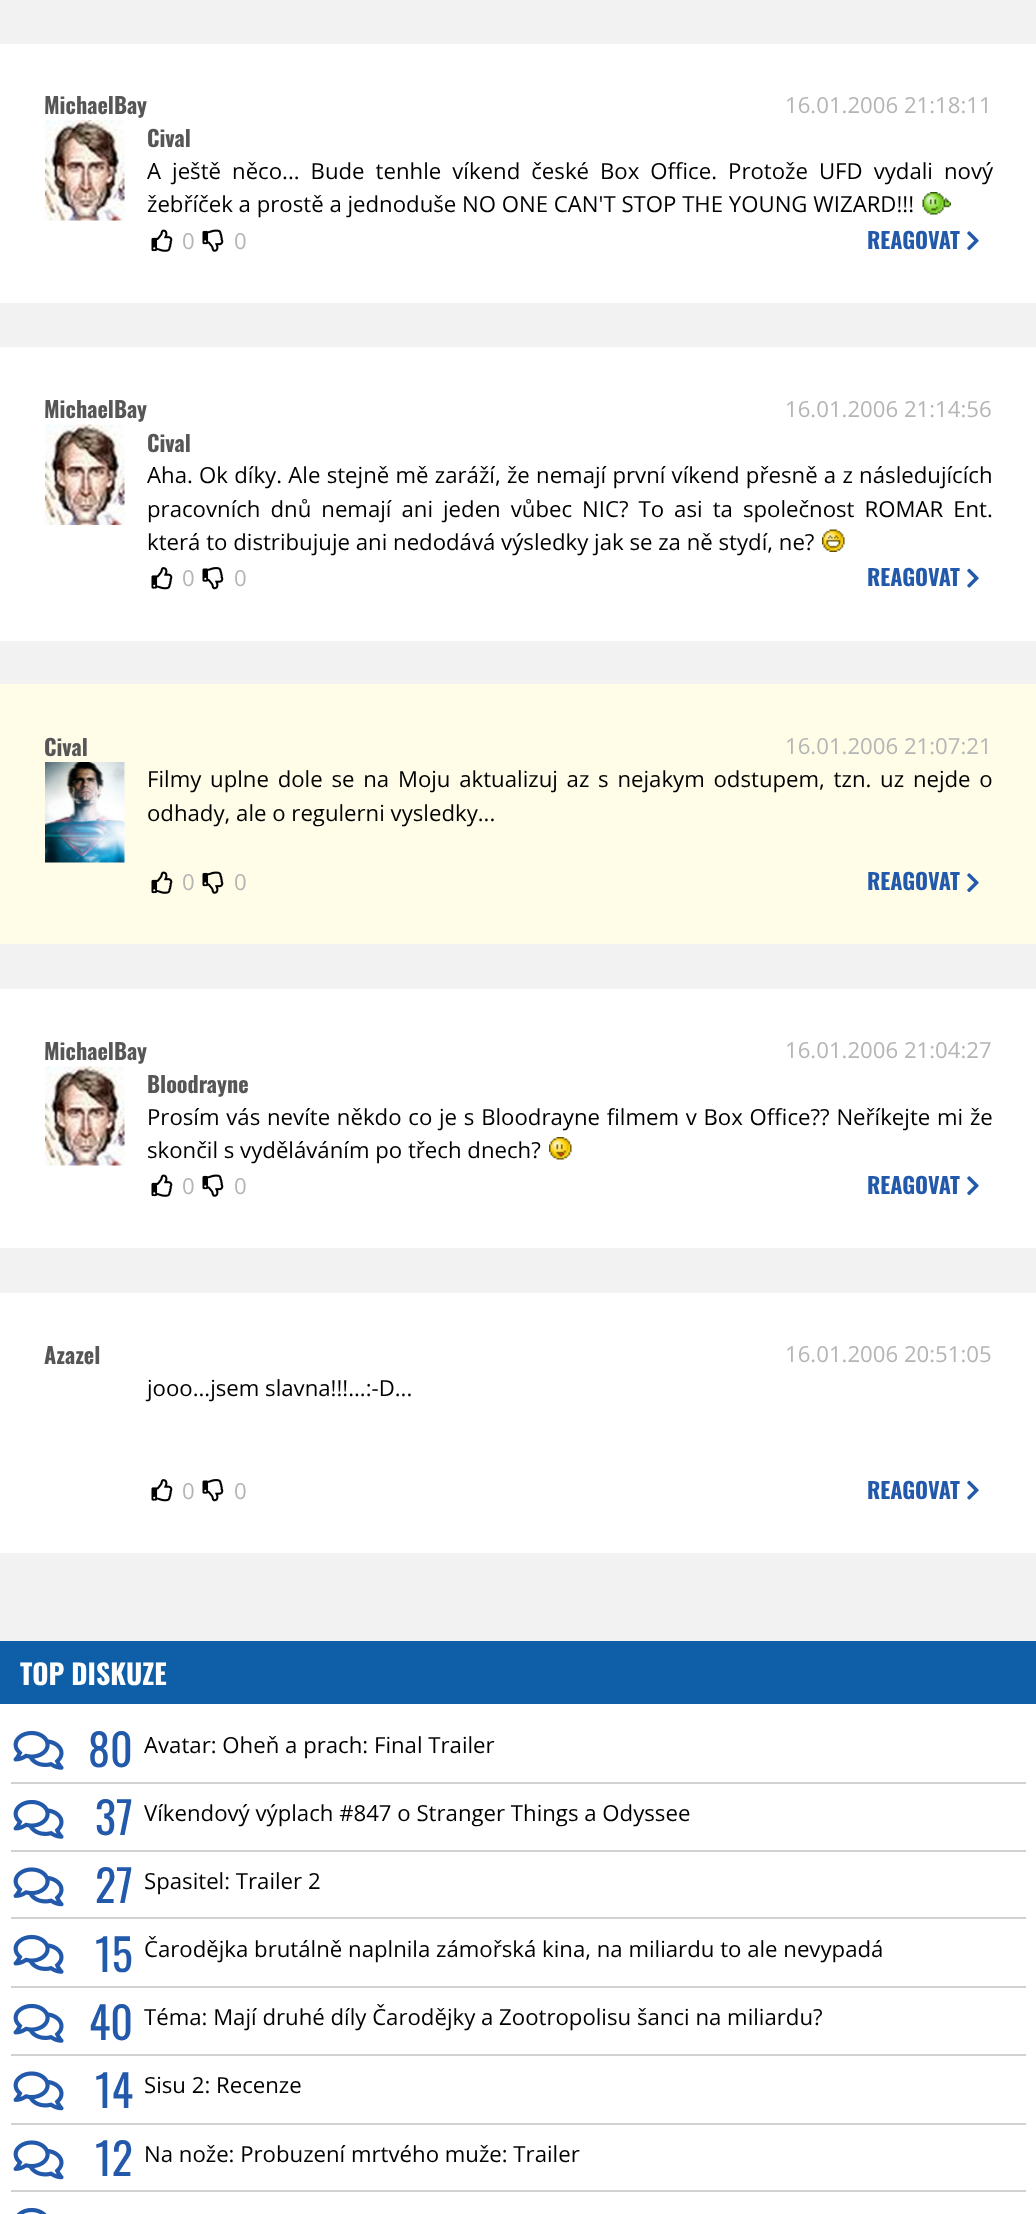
<!DOCTYPE html>
<meta charset="utf-8">
<style>body { margin: 0 } canvas { display: block }</style>
<canvas id="canvas" width="1036" height="2214"></canvas>
<img id="img1" src="images/1.png" hidden>
<img id="img2" src="images/2.png" hidden>
<img id="img3" src="images/3.png" hidden>
<img id="img4" src="images/4.png" hidden>
<img id="img5" src="images/5.png" hidden>
<img id="img6" src="images/6.png" hidden>
<img id="img7" src="images/7.png" hidden>
<img id="img8" src="images/8.png" hidden>
<img id="img9" src="images/9.png" hidden>
<img id="img10" src="images/10.png" hidden>
<img id="img11" src="images/11.png" hidden>
<img id="img12" src="images/12.png" hidden>
<img id="img13" src="images/13.png" hidden>
<img id="img14" src="images/14.png" hidden>
<img id="img15" src="images/15.png" hidden>
<img id="img16" src="images/16.png" hidden>
<img id="img17" src="images/17.png" hidden>
<img id="img18" src="images/18.png" hidden>
<img id="img19" src="images/19.png" hidden>
<script>
window.onload = function () {
    const canvas = document.getElementById('canvas');
    const context = canvas.getContext('2d');
    context.miterLimit = 4;
    context.fontKerning = 'normal';

    context.fillStyle = 'rgb(242, 242, 242)';
    context.fillRect(0, 0, 1036, 2214);
    context.fillStyle = 'rgb(255, 255, 255)';
    context.fillRect(0, 44, 1036, 259);
    context.drawImage(document.getElementById('img1'), 45, 120, 80, 101);
    context.drawImage(document.getElementById('img2'), 922, 192, 29, 23);
    context.drawImage(document.getElementById('img3'), 151, 229, 22, 23);
    context.drawImage(document.getElementById('img4'), 202, 229, 22, 23);
    context.drawImage(document.getElementById('img5'), 967, 231, 12, 20);
    context.fillRect(0, 347, 1036, 294);
    context.drawImage(document.getElementById('img6'), 45, 424, 80, 101);
    context.drawImage(document.getElementById('img7'), 822, 529, 23, 23);
    context.drawImage(document.getElementById('img8'), 151, 567, 22, 23);
    context.drawImage(document.getElementById('img9'), 202, 567, 22, 23);
    context.drawImage(document.getElementById('img10'), 967, 568, 12, 20);
    context.fillStyle = 'rgb(255, 253, 232)';
    context.fillRect(0, 684, 1036, 260);
    context.drawImage(document.getElementById('img11'), 45, 762, 80, 101);
    context.drawImage(document.getElementById('img12'), 151, 871, 22, 23);
    context.drawImage(document.getElementById('img13'), 202, 871, 22, 23);
    context.drawImage(document.getElementById('img14'), 967, 873, 12, 20);
    context.fillStyle = 'rgb(255, 255, 255)';
    context.fillRect(0, 989, 1036, 259);
    context.drawImage(document.getElementById('img15'), 45, 1066, 80, 100);
    context.drawImage(document.getElementById('img16'), 549, 1137, 23, 23);
    context.drawImage(document.getElementById('img3'), 151, 1174, 22, 23);
    context.drawImage(document.getElementById('img4'), 202, 1174, 22, 23);
    context.drawImage(document.getElementById('img5'), 967, 1176, 12, 20);
    context.fillRect(0, 1293, 1036, 260);
    context.drawImage(document.getElementById('img8'), 151, 1479, 22, 23);
    context.drawImage(document.getElementById('img9'), 202, 1479, 22, 23);
    context.drawImage(document.getElementById('img10'), 967, 1480, 12, 20);
    context.fillRect(0, 1704, 1036, 510);
    context.fillStyle = 'rgb(15, 94, 168)';
    context.fillRect(0, 1641, 1036, 63);
    context.fillStyle = 'rgb(209, 209, 209)';
    context.fillRect(11, 1782, 1015, 2);
    context.drawImage(document.getElementById('img17'), 13, 1730, 51, 40);
    context.fillRect(11, 1850, 1015, 2);
    context.drawImage(document.getElementById('img17'), 13, 1799, 51, 40);
    context.fillRect(11, 1917, 1015, 2);
    context.drawImage(document.getElementById('img18'), 13, 1867, 51, 40);
    context.fillRect(11, 1986, 1015, 2);
    context.drawImage(document.getElementById('img17'), 13, 1934, 51, 40);
    context.fillRect(11, 2054, 1015, 2);
    context.drawImage(document.getElementById('img17'), 13, 2003, 51, 40);
    context.fillRect(11, 2123, 1015, 2);
    context.drawImage(document.getElementById('img18'), 13, 2071, 51, 40);
    context.fillRect(11, 2190, 1015, 2);
    context.drawImage(document.getElementById('img18'), 13, 2140, 51, 40);
    context.drawImage(document.getElementById('img19'), 16, 2207, 31, 7);
    context.font = 'bold 22.2px Oswald';
    context.fillStyle = 'rgb(86, 86, 86)';
    context.fillText('MichaelBay', 44, 114);
    context.font = '22.2px Open Sans';
    context.fillStyle = 'rgb(181, 181, 181)';
    context.fillText('16.01.2006 21:18:11', 785, 113);
    context.font = 'bold 22.2px Oswald';
    context.fillStyle = 'rgb(86, 86, 86)';
    context.fillText('Cival', 147, 147);
    context.wordSpacing = '5.25px';
    context.font = '22.2px Open Sans';
    context.fillStyle = 'rgb(0, 0, 0)';
    context.fillText('A ještě něco... Bude tenhle víkend české Box Office. Protože UFD vydali nový', 147, 179);
    context.wordSpacing = '0px';
    context.fillText('žebříček a prostě a jednoduše NO ONE CAN\'T STOP THE YOUNG WIZARD!!!', 147, 212);
    context.fillStyle = 'rgb(181, 181, 181)';
    context.fillText('0', 182, 249);
    context.fillText('0', 234, 249);
    context.font = 'bold 22.2px Oswald';
    context.fillStyle = 'rgb(35, 89, 171)';
    context.fillText('REAGOVAT', 867, 249);
    context.fillStyle = 'rgb(86, 86, 86)';
    context.fillText('MichaelBay', 44, 418);
    context.font = '22.2px Open Sans';
    context.fillStyle = 'rgb(181, 181, 181)';
    context.fillText('16.01.2006 21:14:56', 785, 417);
    context.font = 'bold 22.2px Oswald';
    context.fillStyle = 'rgb(86, 86, 86)';
    context.fillText('Cival', 147, 452);
    context.wordSpacing = '0.5px';
    context.font = '22.2px Open Sans';
    context.fillStyle = 'rgb(0, 0, 0)';
    context.fillText('Aha. Ok díky. Ale stejně mě zaráží, že nemají první víkend přesně a z následujících', 147, 483);
    context.wordSpacing = '4.25px';
    context.fillText('pracovních dnů nemají ani jeden vůbec NIC? To asi ta společnost ROMAR Ent.', 147, 517);
    context.wordSpacing = '0px';
    context.fillText('která to distribujuje ani nedodává výsledky jak se za ně stydí, ne?', 147, 550);
    context.fillStyle = 'rgb(181, 181, 181)';
    context.fillText('0', 182, 586);
    context.fillText('0', 234, 586);
    context.font = 'bold 22.2px Oswald';
    context.fillStyle = 'rgb(35, 89, 171)';
    context.fillText('REAGOVAT', 867, 586);
    context.fillStyle = 'rgb(86, 86, 86)';
    context.fillText('Cival', 44, 756);
    context.font = '22.2px Open Sans';
    context.fillStyle = 'rgb(181, 181, 181)';
    context.fillText('16.01.2006 21:07:21', 785, 754);
    context.wordSpacing = '3px';
    context.fillStyle = 'rgb(0, 0, 0)';
    context.fillText('Filmy uplne dole se na Moju aktualizuj az s nejakym odstupem, tzn. uz nejde o', 147, 787);
    context.wordSpacing = '0px';
    context.fillText('odhady, ale o regulerni vysledky...', 147, 821);
    context.fillStyle = 'rgb(181, 181, 181)';
    context.fillText('0', 182, 890);
    context.fillText('0', 234, 890);
    context.font = 'bold 22.2px Oswald';
    context.fillStyle = 'rgb(35, 89, 171)';
    context.fillText('REAGOVAT', 867, 890);
    context.fillStyle = 'rgb(86, 86, 86)';
    context.fillText('MichaelBay', 44, 1060);
    context.font = '22.2px Open Sans';
    context.fillStyle = 'rgb(181, 181, 181)';
    context.fillText('16.01.2006 21:04:27', 785, 1058);
    context.font = 'bold 22.2px Oswald';
    context.fillStyle = 'rgb(86, 86, 86)';
    context.fillText('Bloodrayne', 147, 1093);
    context.wordSpacing = '1px';
    context.font = '22.2px Open Sans';
    context.fillStyle = 'rgb(0, 0, 0)';
    context.fillText('Prosím vás nevíte někdo co je s Bloodrayne filmem v Box Office?? Neříkejte mi že', 147, 1125);
    context.wordSpacing = '0px';
    context.fillText('skončil s vyděláváním po třech dnech?', 147, 1158);
    context.fillStyle = 'rgb(181, 181, 181)';
    context.fillText('0', 182, 1194);
    context.fillText('0', 234, 1194);
    context.font = 'bold 22.2px Oswald';
    context.fillStyle = 'rgb(35, 89, 171)';
    context.fillText('REAGOVAT', 867, 1194);
    context.fillStyle = 'rgb(86, 86, 86)';
    context.fillText('Azazel', 44, 1364);
    context.font = '22.2px Open Sans';
    context.fillStyle = 'rgb(181, 181, 181)';
    context.fillText('16.01.2006 20:51:05', 785, 1362);
    context.fillStyle = 'rgb(0, 0, 0)';
    context.fillText('jooo...jsem slavna!!!...:-D...', 147, 1396);
    context.fillStyle = 'rgb(181, 181, 181)';
    context.fillText('0', 182, 1499);
    context.fillText('0', 234, 1499);
    context.font = 'bold 22.2px Oswald';
    context.fillStyle = 'rgb(35, 89, 171)';
    context.fillText('REAGOVAT', 867, 1499);
    context.font = 'bold 27.75px Oswald';
    context.fillStyle = 'rgb(255, 255, 255)';
    context.fillText('TOP DISKUZE', 20, 1685);
    context.font = '44px Oswald';
    context.fillStyle = 'rgb(35, 89, 171)';
    context.fillText('80', 88, 1767);
    context.font = '22.2px Open Sans';
    context.fillStyle = 'rgb(0, 0, 0)';
    context.fillText('Avatar: Oheň a prach: Final Trailer', 144, 1753);
    context.font = '44px Oswald';
    context.fillStyle = 'rgb(35, 89, 171)';
    context.fillText('37', 95, 1835);
    context.font = '22.2px Open Sans';
    context.fillStyle = 'rgb(0, 0, 0)';
    context.fillText('Víkendový výplach #847 o Stranger Things a Odyssee', 144, 1821);
    context.font = '44px Oswald';
    context.fillStyle = 'rgb(35, 89, 171)';
    context.fillText('27', 95, 1903);
    context.font = '22.2px Open Sans';
    context.fillStyle = 'rgb(0, 0, 0)';
    context.fillText('Spasitel: Trailer 2', 144, 1889);
    context.font = '44px Oswald';
    context.fillStyle = 'rgb(35, 89, 171)';
    context.fillText('15', 95, 1972);
    context.font = '22.2px Open Sans';
    context.fillStyle = 'rgb(0, 0, 0)';
    context.fillText('Čarodějka brutálně naplnila zámořská kina, na miliardu to ale nevypadá', 144, 1957);
    context.font = '44px Oswald';
    context.fillStyle = 'rgb(35, 89, 171)';
    context.fillText('40', 89, 2040);
    context.font = '22.2px Open Sans';
    context.fillStyle = 'rgb(0, 0, 0)';
    context.fillText('Téma: Mají druhé díly Čarodějky a Zootropolisu šanci na miliardu?', 144, 2025);
    context.font = '44px Oswald';
    context.fillStyle = 'rgb(35, 89, 171)';
    context.fillText('14', 95, 2108);
    context.font = '22.2px Open Sans';
    context.fillStyle = 'rgb(0, 0, 0)';
    context.fillText('Sisu 2: Recenze', 144, 2093);
    context.font = '44px Oswald';
    context.fillStyle = 'rgb(35, 89, 171)';
    context.fillText('12', 95, 2176);
    context.font = '22.2px Open Sans';
    context.fillStyle = 'rgb(0, 0, 0)';
    context.fillText('Na nože: Probuzení mrtvého muže: Trailer', 144, 2162);
};
</script>
